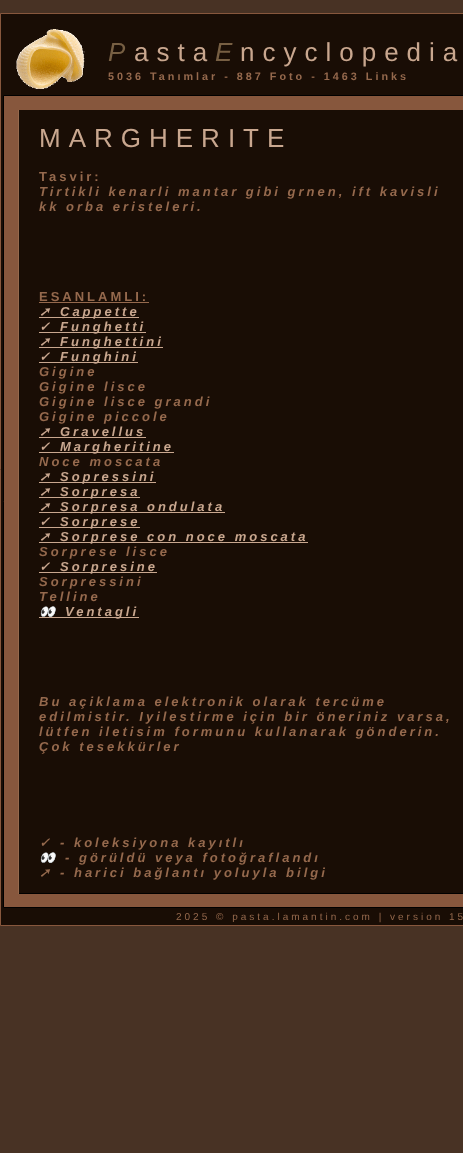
<!DOCTYPE html>
<meta charset="utf-8">
<style>body { margin: 0 } canvas { display: block }</style>
<canvas id="canvas" width="463" height="1153"></canvas>
<img id="img1" src="images/1.png" hidden>
<script>
window.onload = function () {
    const canvas = document.getElementById('canvas');
    const context = canvas.getContext('2d');
    context.miterLimit = 4;
    context.fontKerning = 'normal';

    context.fillStyle = 'rgb(72, 50, 36)';
    context.fillRect(0, 0, 463, 1153);
    context.fillStyle = 'rgb(25, 13, 5)';
    context.beginPath();
    context.rect(0.5, 13.5, 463, 912);
    context.fill();
    context.strokeStyle = 'rgb(135, 87, 61)';
    context.stroke();
    context.drawImage(document.getElementById('img1'), 16, 29, 69, 60);
    context.fillStyle = 'rgb(135, 87, 61)';
    context.beginPath();
    context.rect(3.5, 95.5, 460, 812);
    context.fill();
    context.strokeStyle = 'rgb(0, 0, 0)';
    context.stroke();
    context.fillStyle = 'rgb(25, 13, 5)';
    context.fillRect(19, 110, 444, 783);
    context.fillStyle = 'rgb(0, 0, 0)';
    context.fillRect(18, 893, 445, 1);
    context.fillStyle = 'rgb(149, 105, 77)';
    context.fillRect(18, 110, 1, 784);
    context.fillRect(39, 302, 110, 1);
    context.fillStyle = 'rgb(201, 167, 143)';
    context.fillRect(39, 317, 100, 1);
    context.fillRect(39, 332, 107, 1);
    context.fillRect(39, 347, 124, 1);
    context.fillRect(39, 362, 99, 1);
    context.fillRect(39, 437, 107, 1);
    context.fillRect(39, 452, 135, 1);
    context.fillRect(39, 482, 117, 1);
    context.fillRect(39, 497, 101, 1);
    context.fillRect(39, 512, 186, 1);
    context.fillRect(39, 527, 101, 1);
    context.fillRect(39, 542, 269, 1);
    context.fillRect(39, 572, 118, 1);
    context.fillRect(39, 617, 100, 1);
    context.letterSpacing = '8px';
    context.font = 'italic 26px Liberation Sans';
    context.fillStyle = 'rgb(119, 95, 67)';
    context.fillText('P', 108, 61);
    context.font = '26px Liberation Sans';
    context.fillStyle = 'rgb(201, 167, 143)';
    context.fillText('asta', 134, 61);
    context.font = 'italic 26px Liberation Sans';
    context.fillStyle = 'rgb(119, 95, 67)';
    context.fillText('E', 215, 61);
    context.font = '26px Liberation Sans';
    context.fillStyle = 'rgb(201, 167, 143)';
    context.fillText('ncyclopedia', 240, 61);
    context.letterSpacing = '3px';
    context.font = 'bold 10.8px Liberation Sans';
    context.fillStyle = 'rgb(149, 105, 77)';
    context.fillText('5036 Tanımlar - 887 Foto - 1463 Links', 108, 80);
    context.letterSpacing = '8px';
    context.font = '26px Liberation Sans';
    context.fillStyle = 'rgb(201, 167, 143)';
    context.fillText('MARGHERITE', 39, 147);
    context.letterSpacing = '3px';
    context.font = 'bold 13px Liberation Sans';
    context.fillStyle = 'rgb(149, 105, 77)';
    context.fillText('Tasvir:', 39, 181);
    context.font = 'italic bold 13px Liberation Sans';
    context.fillText('Tirtikli kenarli mantar gibi grnen, ift kavisli', 39, 196);
    context.fillText('kk orba eristeleri.', 39, 211);
    context.font = 'bold 13px Liberation Sans';
    context.fillText('ESANLAMLI:', 39, 301);
    context.font = 'italic bold 13px DejaVu Sans';
    context.fillStyle = 'rgb(201, 167, 143)';
    context.fillText('➚', 39, 316);
    context.font = 'italic bold 13px Liberation Sans';
    context.fillText('Cappette', 60, 316);
    context.font = 'italic bold 13px DejaVu Sans';
    context.fillText('✓', 39, 331);
    context.font = 'italic bold 13px Liberation Sans';
    context.fillText('Funghetti', 60, 331);
    context.font = 'italic bold 13px DejaVu Sans';
    context.fillText('➚', 39, 346);
    context.font = 'italic bold 13px Liberation Sans';
    context.fillText('Funghettini', 60, 346);
    context.font = 'italic bold 13px DejaVu Sans';
    context.fillText('✓', 39, 361);
    context.font = 'italic bold 13px Liberation Sans';
    context.fillText('Funghini', 60, 361);
    context.fillStyle = 'rgb(149, 105, 77)';
    context.fillText('Gigine', 39, 376);
    context.fillText('Gigine lisce', 39, 391);
    context.fillText('Gigine lisce grandi', 39, 406);
    context.fillText('Gigine piccole', 39, 421);
    context.font = 'italic bold 13px DejaVu Sans';
    context.fillStyle = 'rgb(201, 167, 143)';
    context.fillText('➚', 39, 436);
    context.font = 'italic bold 13px Liberation Sans';
    context.fillText('Gravellus', 60, 436);
    context.font = 'italic bold 13px DejaVu Sans';
    context.fillText('✓', 39, 451);
    context.font = 'italic bold 13px Liberation Sans';
    context.fillText('Margheritine', 60, 451);
    context.fillStyle = 'rgb(149, 105, 77)';
    context.fillText('Noce moscata', 39, 466);
    context.font = 'italic bold 13px DejaVu Sans';
    context.fillStyle = 'rgb(201, 167, 143)';
    context.fillText('➚', 39, 481);
    context.font = 'italic bold 13px Liberation Sans';
    context.fillText('Sopressini', 60, 481);
    context.font = 'italic bold 13px DejaVu Sans';
    context.fillText('➚', 39, 496);
    context.font = 'italic bold 13px Liberation Sans';
    context.fillText('Sorpresa', 60, 496);
    context.font = 'italic bold 13px DejaVu Sans';
    context.fillText('➚', 39, 511);
    context.font = 'italic bold 13px Liberation Sans';
    context.fillText('Sorpresa ondulata', 60, 511);
    context.font = 'italic bold 13px DejaVu Sans';
    context.fillText('✓', 39, 526);
    context.font = 'italic bold 13px Liberation Sans';
    context.fillText('Sorprese', 60, 526);
    context.font = 'italic bold 13px DejaVu Sans';
    context.fillText('➚', 39, 541);
    context.font = 'italic bold 13px Liberation Sans';
    context.fillText('Sorprese con noce moscata', 60, 541);
    context.fillStyle = 'rgb(149, 105, 77)';
    context.fillText('Sorprese lisce', 39, 556);
    context.font = 'italic bold 13px DejaVu Sans';
    context.fillStyle = 'rgb(201, 167, 143)';
    context.fillText('✓', 39, 571);
    context.font = 'italic bold 13px Liberation Sans';
    context.fillText('Sorpresine', 60, 571);
    context.fillStyle = 'rgb(149, 105, 77)';
    context.fillText('Sorpressini', 39, 586);
    context.fillText('Telline', 39, 601);
    context.font = 'italic bold 13px Noto Color Emoji';
    context.fillStyle = 'rgb(201, 167, 143)';
    context.fillText('👀', 39, 616);
    context.font = 'italic bold 13px Liberation Sans';
    context.fillText('Ventagli', 65, 616);
    context.fillStyle = 'rgb(149, 105, 77)';
    context.fillText('Bu açiklama elektronik olarak tercüme', 39, 706);
    context.fillText('edilmistir. Iyilestirme için bir öneriniz varsa,', 39, 721);
    context.fillText('lütfen iletisim formunu kullanarak gönderin.', 39, 736);
    context.fillText('Çok tesekkürler', 39, 751);
    context.font = 'italic bold 13px DejaVu Sans';
    context.fillText('✓', 39, 847);
    context.font = 'italic bold 13px Liberation Sans';
    context.fillText('- koleksiyona kayıtlı', 60, 847);
    context.font = 'italic bold 13px Noto Color Emoji';
    context.fillText('👀', 39, 862);
    context.font = 'italic bold 13px Liberation Sans';
    context.fillText('- görüldü veya fotoğraflandı', 65, 862);
    context.font = 'italic bold 13px DejaVu Sans';
    context.fillText('➚', 39, 877);
    context.font = 'italic bold 13px Liberation Sans';
    context.fillText('- harici bağlantı yoluyla bilgi', 60, 877);
    context.font = '10px Liberation Sans';
    context.fillText('2025 © pasta.lamantin.com | version 15', 176, 920);
};
</script>
